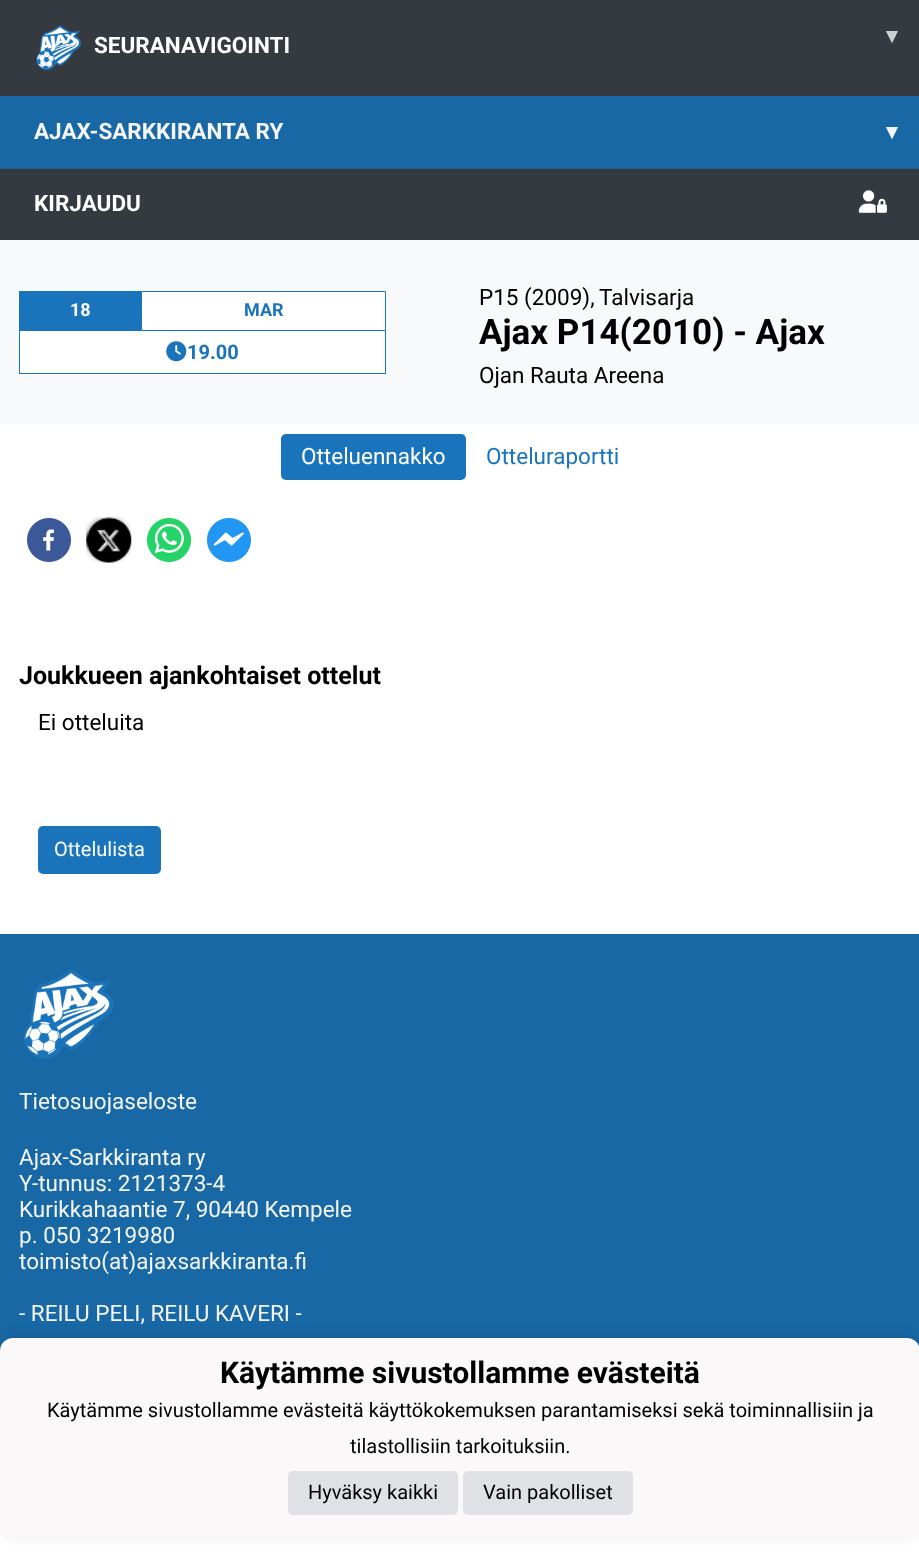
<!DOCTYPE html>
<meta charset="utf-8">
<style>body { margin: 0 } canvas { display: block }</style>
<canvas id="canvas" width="919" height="1553"></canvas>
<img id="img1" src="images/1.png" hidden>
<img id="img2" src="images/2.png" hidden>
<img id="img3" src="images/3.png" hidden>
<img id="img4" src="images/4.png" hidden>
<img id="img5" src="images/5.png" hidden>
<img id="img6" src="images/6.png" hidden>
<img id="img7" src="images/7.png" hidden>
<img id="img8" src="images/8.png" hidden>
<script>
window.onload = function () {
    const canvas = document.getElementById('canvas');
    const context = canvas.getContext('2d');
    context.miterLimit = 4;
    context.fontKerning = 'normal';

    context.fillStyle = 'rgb(255, 255, 255)';
    context.fillRect(0, 0, 919, 1553);
    context.fillStyle = 'rgb(52, 58, 64)';
    context.fillRect(0, 0, 919, 95);
    context.fillStyle = 'rgb(49, 55, 61)';
    context.fillRect(0, 95, 919, 1);
    context.drawImage(document.getElementById('img1'), 36, 25, 45, 45);
    context.fillStyle = 'rgb(24, 104, 165)';
    context.fillRect(0, 96, 919, 72);
    context.fillStyle = 'rgb(23, 99, 157)';
    context.fillRect(0, 168, 919, 1);
    context.fillStyle = 'rgb(52, 58, 64)';
    context.fillRect(0, 169, 919, 70);
    context.fillStyle = 'rgb(49, 55, 61)';
    context.fillRect(0, 239, 919, 1);
    context.drawImage(document.getElementById('img2'), 858, 190, 29, 23);
    context.fillStyle = 'rgb(248, 249, 250)';
    context.fillRect(0, 240, 919, 184);
    context.fillStyle = 'rgb(26, 116, 187)';
    context.fillRect(19, 291, 122, 40);
    context.fillStyle = 'rgb(255, 255, 255)';
    context.beginPath();
    context.rect(141.5, 291.5, 244, 39);
    context.fill();
    context.strokeStyle = 'rgb(26, 116, 187)';
    context.stroke();
    context.fillRect(20, 331, 365, 42);
    context.fillStyle = 'rgb(26, 116, 187)';
    context.fillRect(385, 331, 1, 43);
    context.fillRect(19, 373, 367, 1);
    context.fillRect(19, 331, 1, 43);
    context.drawImage(document.getElementById('img3'), 166, 341, 21, 21);
    context.beginPath();
    context.roundRect(281, 434, 185, 46, 5);
    context.fill();
    context.drawImage(document.getElementById('img4'), 27, 518, 44, 44);
    context.drawImage(document.getElementById('img5'), 86, 517, 46, 46);
    context.drawImage(document.getElementById('img6'), 147, 518, 44, 44);
    context.drawImage(document.getElementById('img7'), 207, 518, 44, 44);
    context.beginPath();
    context.roundRect(38, 826, 123, 48, 5);
    context.fill();
    context.fillStyle = 'rgb(24, 104, 165)';
    context.fillRect(0, 934, 919, 417);
    context.drawImage(document.getElementById('img8'), 24, 969, 90, 90);
    context.fillStyle = 'rgba(0, 0, 0, 0.1)';
    context.filter = 'blur(6px)';
    context.beginPath();
    context.roundRect(0, 1335, 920, 201, 13);
    context.fill();
    context.filter = 'none';
    context.fillStyle = 'rgb(250, 248, 248)';
    context.beginPath();
    context.roundRect(0, 1338, 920, 201, 13);
    context.fill();
    context.fillStyle = 'rgb(223, 225, 229)';
    context.beginPath();
    context.roundRect(288, 1471, 170, 44, 5);
    context.fill();
    context.beginPath();
    context.roundRect(463, 1471, 170, 44, 5);
    context.fill();
    context.font = 'bold 22.5px Roboto';
    context.fillStyle = 'rgb(255, 255, 255)';
    context.fillText('SEURANAVIGOINTI', 94, 53);
    context.font = 'bold 22.5px DejaVu Sans';
    context.fillStyle = 'rgb(204, 206, 207)';
    context.fillText('▾', 886, 43);
    context.font = 'bold 22.5px Roboto';
    context.fillStyle = 'rgb(245, 245, 245)';
    context.fillText('AJAX-SARKKIRANTA RY', 34, 139);
    context.font = 'bold 22.5px DejaVu Sans';
    context.fillText('▾', 886, 139);
    context.font = 'bold 22.5px Roboto';
    context.fillStyle = 'rgb(255, 255, 255)';
    context.fillText('KIRJAUDU', 34, 211);
    context.font = 'bold 18px Roboto';
    context.fillText('18', 70, 316);
    context.fillStyle = 'rgb(26, 116, 187)';
    context.fillText('MAR', 244, 316);
    context.font = 'bold 20px Roboto';
    context.fillText('19.00', 187, 359);
    context.font = '22.5px Roboto';
    context.fillStyle = 'rgb(0, 0, 0)';
    context.fillText('P15 (2009),', 479, 305);
    context.fillText('Talvisarja', 599, 305);
    context.font = 'bold 35px Roboto';
    context.fillText('Ajax P14(2010) - Ajax', 479, 344);
    context.font = '22.5px Roboto';
    context.fillText('Ojan Rauta Areena', 479, 383);
    context.fillStyle = 'rgb(255, 255, 255)';
    context.fillText('Otteluennakko', 301, 464);
    context.fillStyle = 'rgb(26, 116, 187)';
    context.fillText('Otteluraportti', 486, 464);
    context.font = 'bold 25px Roboto';
    context.fillStyle = 'rgb(0, 0, 0)';
    context.fillText('Joukkueen ajankohtaiset ottelut', 19, 684);
    context.font = '22.5px Roboto';
    context.fillText('Ei otteluita', 38, 730);
    context.font = '20px Roboto';
    context.fillStyle = 'rgb(255, 255, 255)';
    context.fillText('Ottelulista', 54, 856);
    context.font = '22.5px Roboto';
    context.fillStyle = 'rgb(245, 245, 245)';
    context.fillText('Tietosuojaseloste', 19, 1109);
    context.fillText('Ajax-Sarkkiranta ry', 19, 1165);
    context.fillText('Y-tunnus: 2121373-4', 19, 1191);
    context.fillText('Kurikkahaantie 7, 90440 Kempele', 19, 1217);
    context.fillText('p. 050 3219980', 19, 1243);
    context.fillText('toimisto(at)ajaxsarkkiranta.fi', 19, 1269);
    context.fillText('- REILU PELI, REILU KAVERI -', 19, 1321);
    context.font = 'bold 30px Roboto';
    context.fillStyle = 'rgb(0, 0, 0)';
    context.fillText('Käytämme sivustollamme evästeitä', 220, 1383);
    context.font = '20px Roboto';
    context.fillText('Käytämme sivustollamme evästeitä käyttökokemuksen parantamiseksi sekä toiminnallisiin ja', 47, 1417);
    context.fillText('tilastollisiin tarkoituksiin.', 350, 1453);
    context.fillText('Hyväksy kaikki', 308, 1499);
    context.fillText('Vain pakolliset', 483, 1499);
};
</script>
